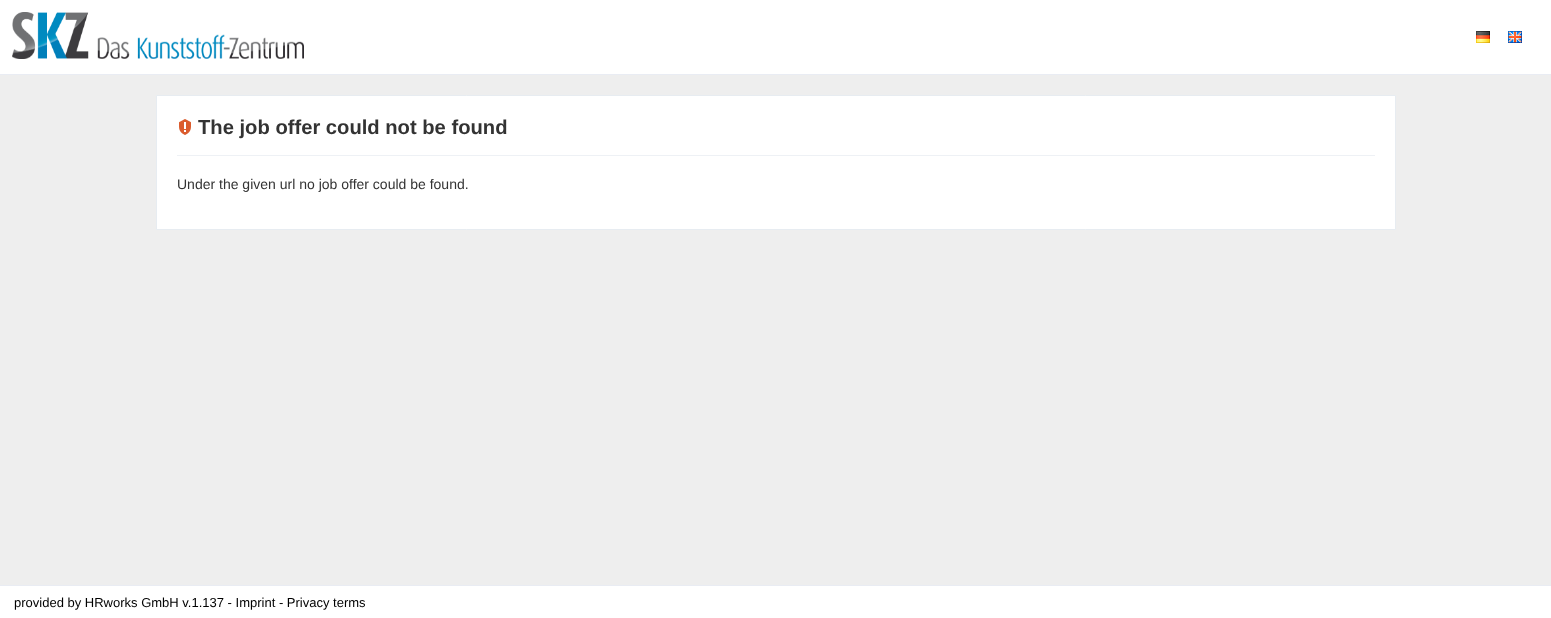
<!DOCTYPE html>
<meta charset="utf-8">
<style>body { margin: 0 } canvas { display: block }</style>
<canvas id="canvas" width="1551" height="618"></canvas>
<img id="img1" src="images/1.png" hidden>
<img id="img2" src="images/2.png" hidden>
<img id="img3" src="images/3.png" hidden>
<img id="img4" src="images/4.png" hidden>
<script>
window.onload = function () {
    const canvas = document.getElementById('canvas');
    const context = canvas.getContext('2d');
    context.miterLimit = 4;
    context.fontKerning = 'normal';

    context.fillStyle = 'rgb(238, 238, 238)';
    context.fillRect(0, 0, 1551, 618);
    context.fillStyle = 'rgb(255, 255, 255)';
    context.fillRect(0, 0, 1551, 74);
    context.fillStyle = 'rgb(233, 236, 243)';
    context.fillRect(0, 74, 1551, 1);
    context.drawImage(document.getElementById('img1'), 12, 12, 292, 47);
    context.drawImage(document.getElementById('img2'), 1476, 31, 14, 12);
    context.drawImage(document.getElementById('img3'), 1508, 31, 14, 12);
    context.fillStyle = 'rgb(255, 255, 255)';
    context.beginPath();
    context.rect(156.5, 95.5, 1239, 134);
    context.fill();
    context.strokeStyle = 'rgb(231, 236, 241)';
    context.stroke();
    context.fillStyle = 'rgb(238, 241, 245)';
    context.fillRect(177, 155, 1198, 1);
    context.drawImage(document.getElementById('img4'), 179, 119, 12, 16);
    context.fillStyle = 'rgb(255, 255, 255)';
    context.fillRect(0, 586, 1551, 32);
    context.fillStyle = 'rgb(233, 236, 243)';
    context.fillRect(0, 585, 1551, 1);
    context.font = 'bold 20.2px Liberation Sans';
    context.fillStyle = 'rgb(51, 51, 51)';
    context.fillText('The job offer could not be found', 198, 134);
    context.font = '14px Liberation Sans';
    context.fillText('Under the given url no job offer could be found.', 177, 189);
    context.font = '13px Liberation Sans';
    context.fillStyle = 'rgb(0, 0, 0)';
    context.fillText('provided by HRworks GmbH v.1.137 - Imprint - Privacy terms', 14, 607);
};
</script>
